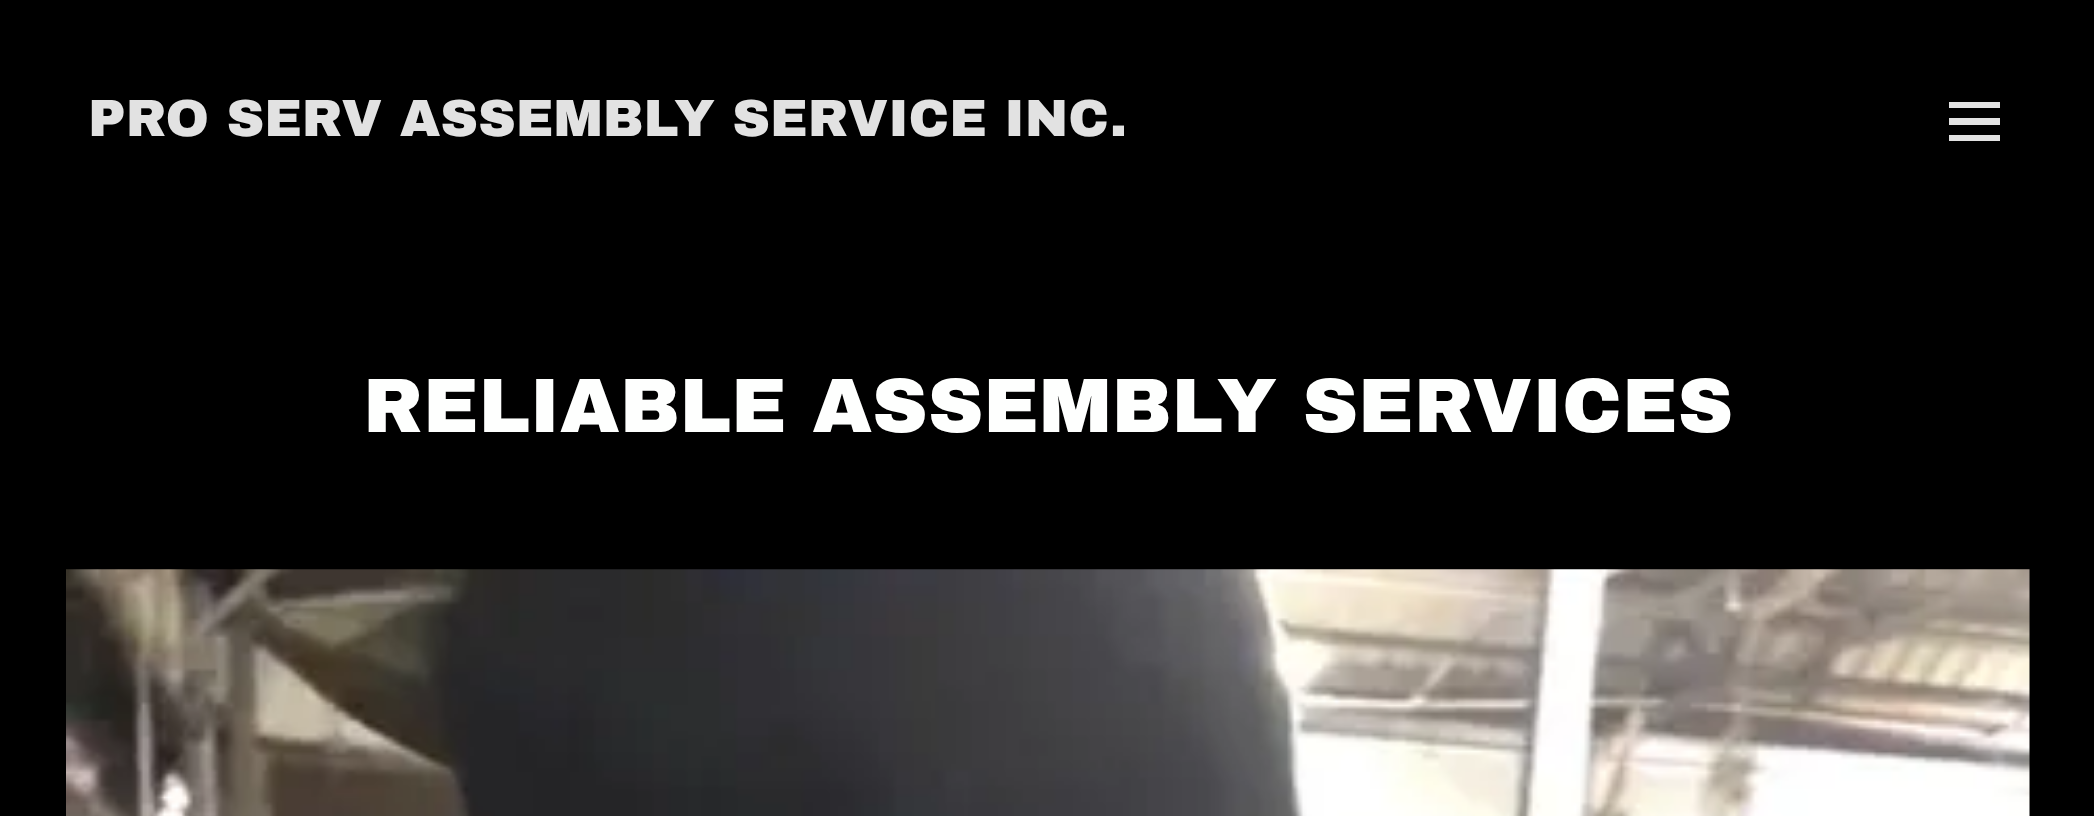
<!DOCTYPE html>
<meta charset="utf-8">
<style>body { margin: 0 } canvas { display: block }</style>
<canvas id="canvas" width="2094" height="816"></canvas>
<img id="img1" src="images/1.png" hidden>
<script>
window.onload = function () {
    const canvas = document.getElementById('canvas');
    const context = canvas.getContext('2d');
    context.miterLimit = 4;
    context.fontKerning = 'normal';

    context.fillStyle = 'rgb(0, 0, 0)';
    context.fillRect(0, 0, 2094, 816);
    context.fillStyle = 'rgb(226, 226, 226)';
    context.fillRect(1949, 102, 51, 6);
    context.fillRect(1949, 118, 51, 7);
    context.fillRect(1949, 135, 51, 6);
    context.drawImage(document.getElementById('img1'), 66, 569, 1964, 247);
    context.font = '900 52.25px Archivo Black';
    context.fillText('PRO SERV ASSEMBLY SERVICE INC.', 88, 136);
    context.font = '900 77px Archivo Black';
    context.fillStyle = 'rgb(254, 255, 254)';
    context.fillText('RELIABLE ASSEMBLY SERVICES', 363, 432);
};
</script>
